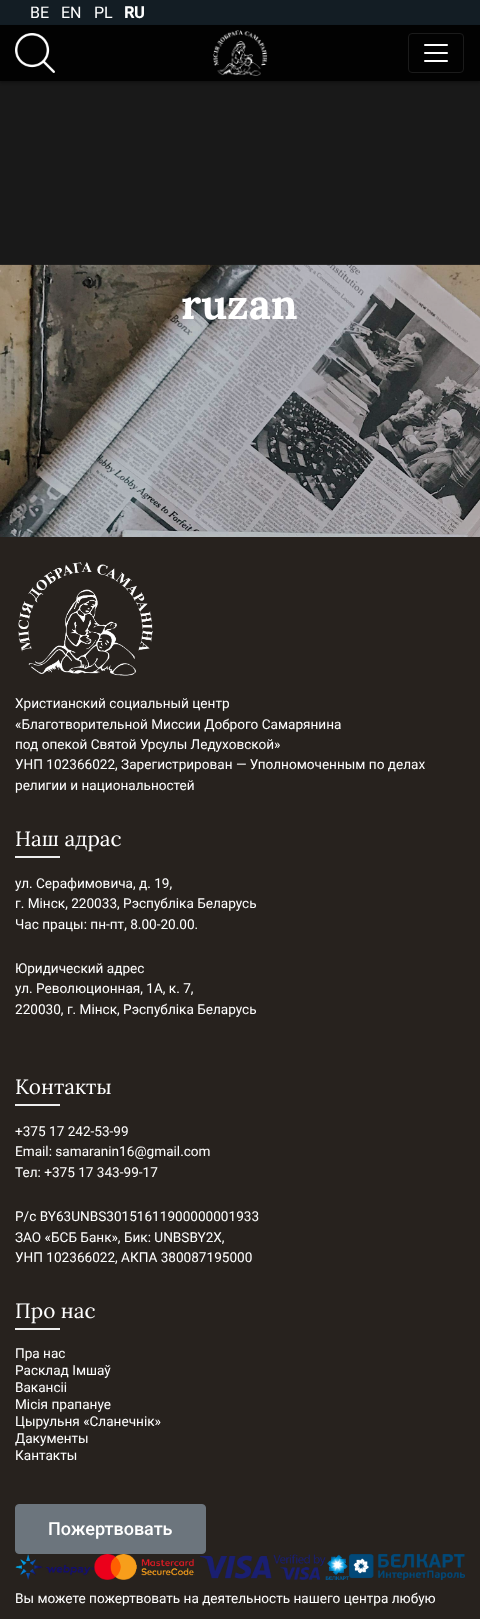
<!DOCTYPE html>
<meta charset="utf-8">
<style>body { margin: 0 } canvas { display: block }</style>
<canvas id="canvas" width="480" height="1619"></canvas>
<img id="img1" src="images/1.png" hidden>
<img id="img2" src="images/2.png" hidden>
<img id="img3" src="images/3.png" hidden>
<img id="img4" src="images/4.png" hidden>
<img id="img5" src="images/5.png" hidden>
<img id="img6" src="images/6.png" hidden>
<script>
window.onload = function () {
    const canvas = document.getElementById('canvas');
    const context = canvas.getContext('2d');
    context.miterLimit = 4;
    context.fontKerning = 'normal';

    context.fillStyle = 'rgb(19, 29, 36)';
    context.fillRect(0, 0, 480, 1619);
    context.fillStyle = 'rgb(25, 25, 25)';
    context.fillRect(0, 81, 480, 184);
    context.fillStyle = 'rgba(0, 0, 0, 0.3)';
    context.filter = 'blur(1.5px)';
    context.beginPath();
    context.rect(0, 27, 480, 56);
    context.fill();
    context.filter = 'none';
    context.fillStyle = 'rgb(2, 2, 2)';
    context.fillRect(0, 25, 480, 56);
    context.drawImage(document.getElementById('img1'), 15, 33, 40, 40);
    context.drawImage(document.getElementById('img2'), 213, 30, 55, 46);
    context.beginPath();
    context.roundRect(408.5, 33.5, 55, 39, 3.5);
    context.strokeStyle = 'rgb(27, 27, 27)';
    context.stroke();
    context.drawImage(document.getElementById('img3'), 424, 44, 24, 18);
    context.drawImage(document.getElementById('img4'), 0, 264, 480, 273);
    context.fillStyle = 'rgb(39, 34, 30)';
    context.fillRect(0, 537, 480, 1082);
    context.drawImage(document.getElementById('img5'), 18, 562, 135, 114);
    context.fillStyle = 'rgb(238, 238, 238)';
    context.fillRect(15, 856, 45, 2);
    context.fillRect(15, 1104, 45, 2);
    context.fillRect(15, 1328, 45, 2);
    context.fillStyle = 'rgb(108, 117, 125)';
    context.beginPath();
    context.roundRect(15.5, 1504.5, 190, 49, 3.5);
    context.fill();
    context.strokeStyle = 'rgb(108, 117, 125)';
    context.stroke();
    context.drawImage(document.getElementById('img6'), 15, 1554, 450, 26);
    context.font = '16px Roboto';
    context.fillStyle = 'rgb(255, 255, 255)';
    context.fillText('BE', 30, 18);
    context.fillText('EN', 61, 18);
    context.fillText('PL', 94, 18);
    context.font = 'bold 16px Roboto';
    context.fillText('RU', 124, 18);
    context.font = 'bold 42px Lora';
    context.fillText('ruzan', 181, 319);
    context.font = '13.6px Roboto';
    context.fillText('Христианский социальный центр', 15, 708);
    context.fillText('«Благотворительной Миссии Доброго Самарянина', 15, 729);
    context.fillText('под опекой Святой Урсулы Ледуховской»', 15, 749);
    context.fillText('УНП 102366022, Зарегистрирован — Уполномоченным по делах', 15, 769);
    context.fillText('религии и национальностей', 15, 790);
    context.font = '20.75px Lora';
    context.fillText('Наш адрас', 15, 846);
    context.font = '13.6px Roboto';
    context.fillText('ул. Серафимовича, д. 19,', 15, 888);
    context.fillText('г. Мінск, 220033, Рэспубліка Беларусь', 15, 908);
    context.fillText('Час працы: пн-пт, 8.00-20.00.', 15, 929);
    context.fillText('Юридический адрес', 15, 973);
    context.fillText('ул. Революционная, 1А, к. 7,', 15, 993);
    context.fillText('220030, г. Мінск, Рэспубліка Беларусь', 15, 1014);
    context.font = '20.75px Lora';
    context.fillText('Контакты', 15, 1094);
    context.font = '13.6px Roboto';
    context.fillText('+375 17 242-53-99', 15, 1136);
    context.fillText('Email: samaranin16@gmail.com', 15, 1156);
    context.fillText('Тел: +375 17 343-99-17', 15, 1177);
    context.fillText('Р/c BY63UNBS30151611900000001933', 15, 1221);
    context.fillText('ЗАО «БСБ Банк», Бик: UNBSBY2X,', 15, 1242);
    context.fillText('УНП 102366022, АКПА 380087195000', 15, 1262);
    context.font = '20.75px Lora';
    context.fillText('Про нас', 15, 1318);
    context.font = '13.6px Roboto';
    context.fillText('Пра нас', 15, 1358);
    context.fillText('Расклад Імшаў', 15, 1375);
    context.fillText('Вакансіі', 15, 1392);
    context.fillText('Місія прапануе', 15, 1409);
    context.fillText('Цырульня «Сланечнік»', 15, 1426);
    context.fillText('Дакументы', 15, 1443);
    context.fillText('Кантакты', 15, 1460);
    context.font = '500 18px Roboto';
    context.fillText('Пожертвовать', 48, 1535);
    context.font = '13.6px Roboto';
    context.fillText('Вы можете пожертвовать на деятельность нашего центра любую', 15, 1603);
};
</script>
